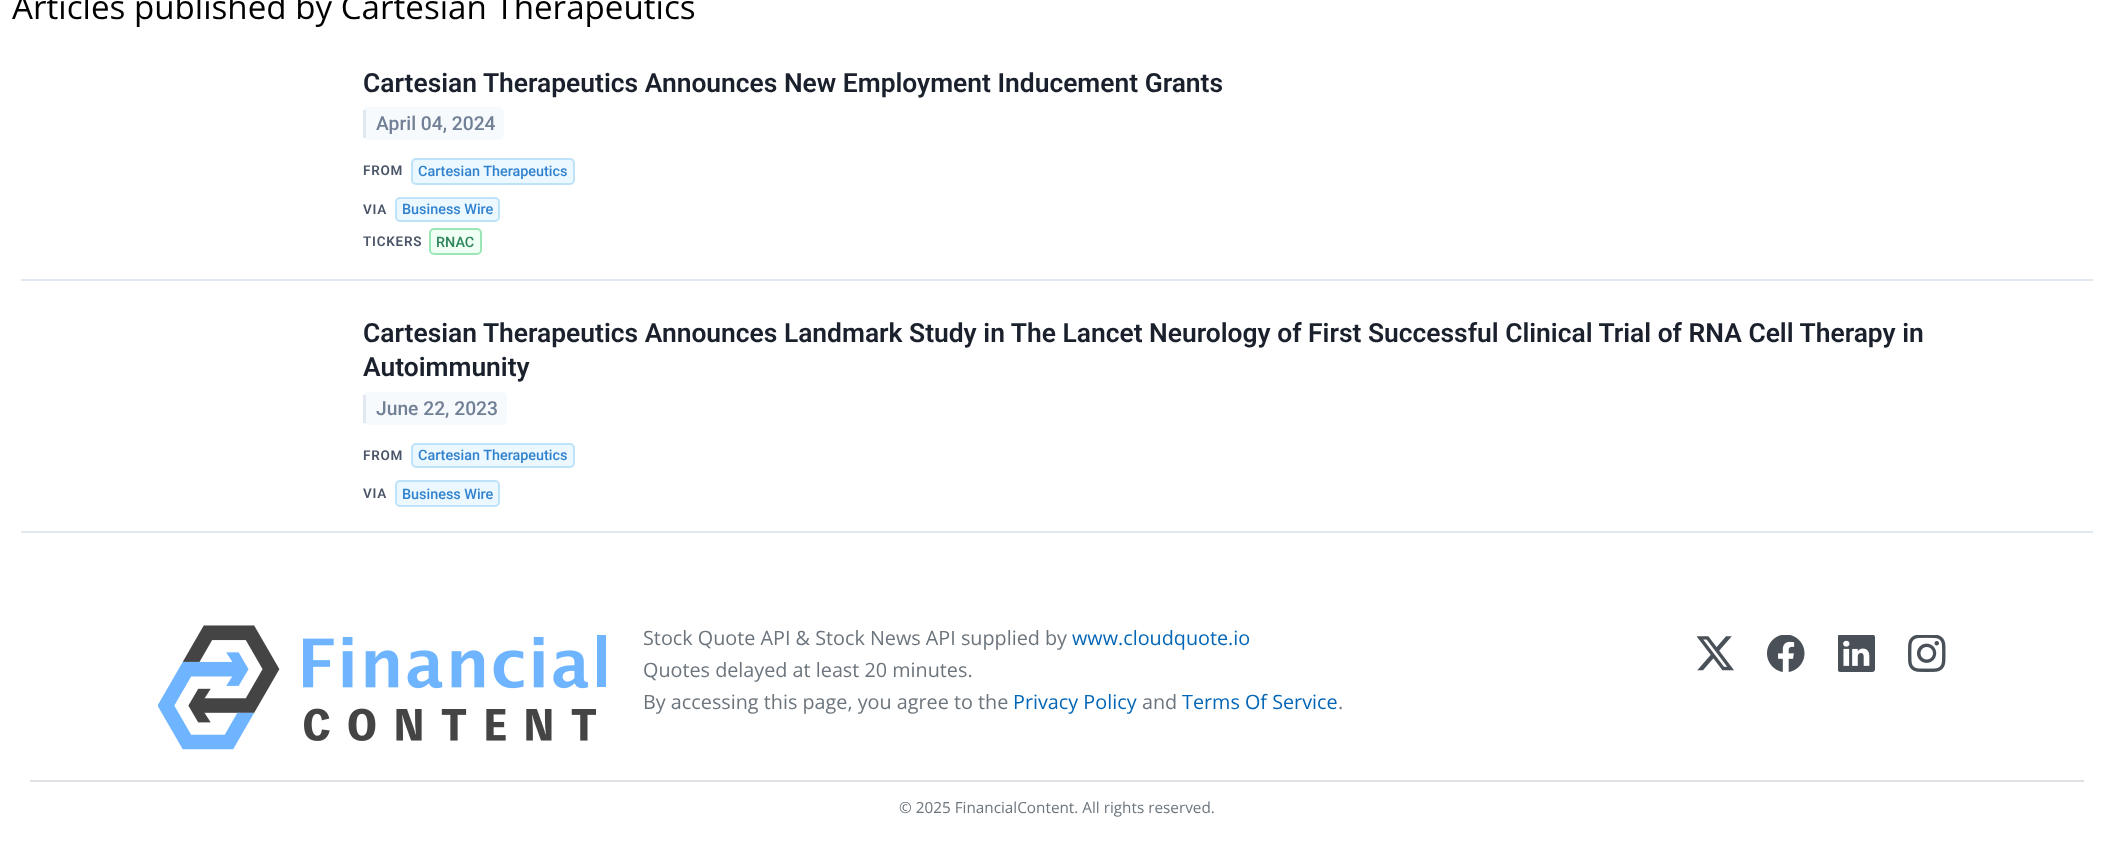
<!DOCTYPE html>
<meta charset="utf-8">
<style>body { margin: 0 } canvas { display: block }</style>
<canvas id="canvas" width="2113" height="855"></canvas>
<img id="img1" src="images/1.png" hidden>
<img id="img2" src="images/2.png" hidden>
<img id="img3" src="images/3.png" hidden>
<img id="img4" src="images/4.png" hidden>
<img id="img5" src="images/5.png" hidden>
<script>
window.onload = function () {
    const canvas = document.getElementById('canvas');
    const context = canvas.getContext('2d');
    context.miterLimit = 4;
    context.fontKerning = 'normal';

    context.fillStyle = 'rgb(255, 255, 255)';
    context.fillRect(0, 0, 2113, 855);
    context.fillStyle = 'rgb(226, 232, 240)';
    context.fillRect(21, 279, 2072, 2);
    context.fillStyle = 'rgb(247, 250, 252)';
    context.beginPath();
    context.roundRect(363, 107, 141, 33, 5);
    context.fill();
    context.fillStyle = 'rgb(226, 232, 240)';
    context.fillRect(363, 110, 3, 28);
    context.fillStyle = 'rgb(235, 248, 255)';
    context.beginPath();
    context.roundRect(412, 159, 162, 25, 4);
    context.fill();
    context.strokeStyle = 'rgb(190, 227, 248)';
    context.lineWidth = 2;
    context.stroke();
    context.beginPath();
    context.roundRect(396, 198, 103, 23, 4);
    context.fill();
    context.stroke();
    context.fillStyle = 'rgb(240, 255, 244)';
    context.beginPath();
    context.roundRect(430, 229, 51, 25, 4);
    context.fill();
    context.strokeStyle = 'rgb(154, 230, 180)';
    context.stroke();
    context.fillStyle = 'rgb(226, 232, 240)';
    context.fillRect(21, 531, 2072, 2);
    context.fillStyle = 'rgb(247, 250, 252)';
    context.beginPath();
    context.roundRect(363, 392, 144, 33, 5);
    context.fill();
    context.fillStyle = 'rgb(226, 232, 240)';
    context.fillRect(363, 395, 3, 28);
    context.fillStyle = 'rgb(235, 248, 255)';
    context.beginPath();
    context.roundRect(412, 444, 162, 23, 4);
    context.fill();
    context.strokeStyle = 'rgb(190, 227, 248)';
    context.stroke();
    context.beginPath();
    context.roundRect(396, 481, 103, 25, 4);
    context.fill();
    context.stroke();
    context.drawImage(document.getElementById('img1'), 158, 625, 448, 125);
    context.drawImage(document.getElementById('img2'), 1697, 636, 37, 35);
    context.drawImage(document.getElementById('img3'), 1767, 635, 38, 37);
    context.drawImage(document.getElementById('img4'), 1838, 635, 37, 37);
    context.drawImage(document.getElementById('img5'), 1908, 635, 38, 37);
    context.fillStyle = 'rgb(222, 226, 230)';
    context.fillRect(30, 780, 2054, 2);
    context.font = '33.15px Open Sans';
    context.fillStyle = 'rgb(0, 0, 0)';
    context.fillText('Articles published by Cartesian Therapeutics', 12, 19);
    context.font = '600 26.4px Roboto';
    context.fillStyle = 'rgb(26, 32, 44)';
    context.fillText('Cartesian Therapeutics Announces New Employment Inducement Grants', 363, 92);
    context.font = '500 19.25px Roboto';
    context.fillStyle = 'rgb(113, 128, 150)';
    context.fillText('April 04, 2024', 376, 130);
    context.letterSpacing = '0.75px';
    context.font = '600 13.5px Roboto';
    context.fillStyle = 'rgb(74, 85, 104)';
    context.fillText('FROM', 363, 175);
    context.letterSpacing = '0px';
    context.font = '500 14.4px Roboto';
    context.fillStyle = 'rgb(49, 130, 206)';
    context.fillText('Cartesian Therapeutics', 418, 176);
    context.letterSpacing = '0.75px';
    context.font = '600 13.5px Roboto';
    context.fillStyle = 'rgb(74, 85, 104)';
    context.fillText('VIA', 363, 214);
    context.letterSpacing = '0px';
    context.font = '500 14.4px Roboto';
    context.fillStyle = 'rgb(49, 130, 206)';
    context.fillText('Business Wire', 402, 214);
    context.letterSpacing = '0.75px';
    context.font = '600 13.5px Roboto';
    context.fillStyle = 'rgb(74, 85, 104)';
    context.fillText('TICKERS', 363, 246);
    context.letterSpacing = '0px';
    context.font = '500 14.4px Roboto';
    context.fillStyle = 'rgb(47, 133, 90)';
    context.fillText('RNAC', 436, 247);
    context.font = '600 26.4px Roboto';
    context.fillStyle = 'rgb(26, 32, 44)';
    context.fillText('Cartesian Therapeutics Announces Landmark Study in The Lancet Neurology of First Successful Clinical Trial of RNA Cell Therapy in', 363, 342);
    context.fillText('Autoimmunity', 363, 376);
    context.font = '500 19.25px Roboto';
    context.fillStyle = 'rgb(113, 128, 150)';
    context.fillText('June 22, 2023', 376, 415);
    context.letterSpacing = '0.75px';
    context.font = '600 13.5px Roboto';
    context.fillStyle = 'rgb(74, 85, 104)';
    context.fillText('FROM', 363, 460);
    context.letterSpacing = '0px';
    context.font = '500 14.4px Roboto';
    context.fillStyle = 'rgb(49, 130, 206)';
    context.fillText('Cartesian Therapeutics', 418, 460);
    context.letterSpacing = '0.75px';
    context.font = '600 13.5px Roboto';
    context.fillStyle = 'rgb(74, 85, 104)';
    context.fillText('VIA', 363, 498);
    context.letterSpacing = '0px';
    context.font = '500 14.4px Roboto';
    context.fillStyle = 'rgb(49, 130, 206)';
    context.fillText('Business Wire', 402, 499);
    context.font = '19.8px Open Sans';
    context.fillStyle = 'rgb(108, 117, 125)';
    context.fillText('Stock Quote API & Stock News API supplied by', 643, 645);
    context.fillStyle = 'rgb(4, 102, 182)';
    context.fillText('www.cloudquote.io', 1072, 645);
    context.fillStyle = 'rgb(108, 117, 125)';
    context.fillText('Quotes delayed at least 20 minutes.', 643, 677);
    context.fillText('By accessing this page, you agree to the', 643, 709);
    context.fillStyle = 'rgb(4, 102, 182)';
    context.fillText('Privacy Policy', 1013, 709);
    context.fillStyle = 'rgb(108, 117, 125)';
    context.fillText('and', 1142, 709);
    context.fillStyle = 'rgb(4, 102, 182)';
    context.fillText('Terms Of Service', 1182, 709);
    context.fillStyle = 'rgb(108, 117, 125)';
    context.fillText('.', 1338, 709);
    context.font = '15.3px Open Sans';
    context.fillText('© 2025 FinancialContent. All rights reserved.', 899, 813);
};
</script>
